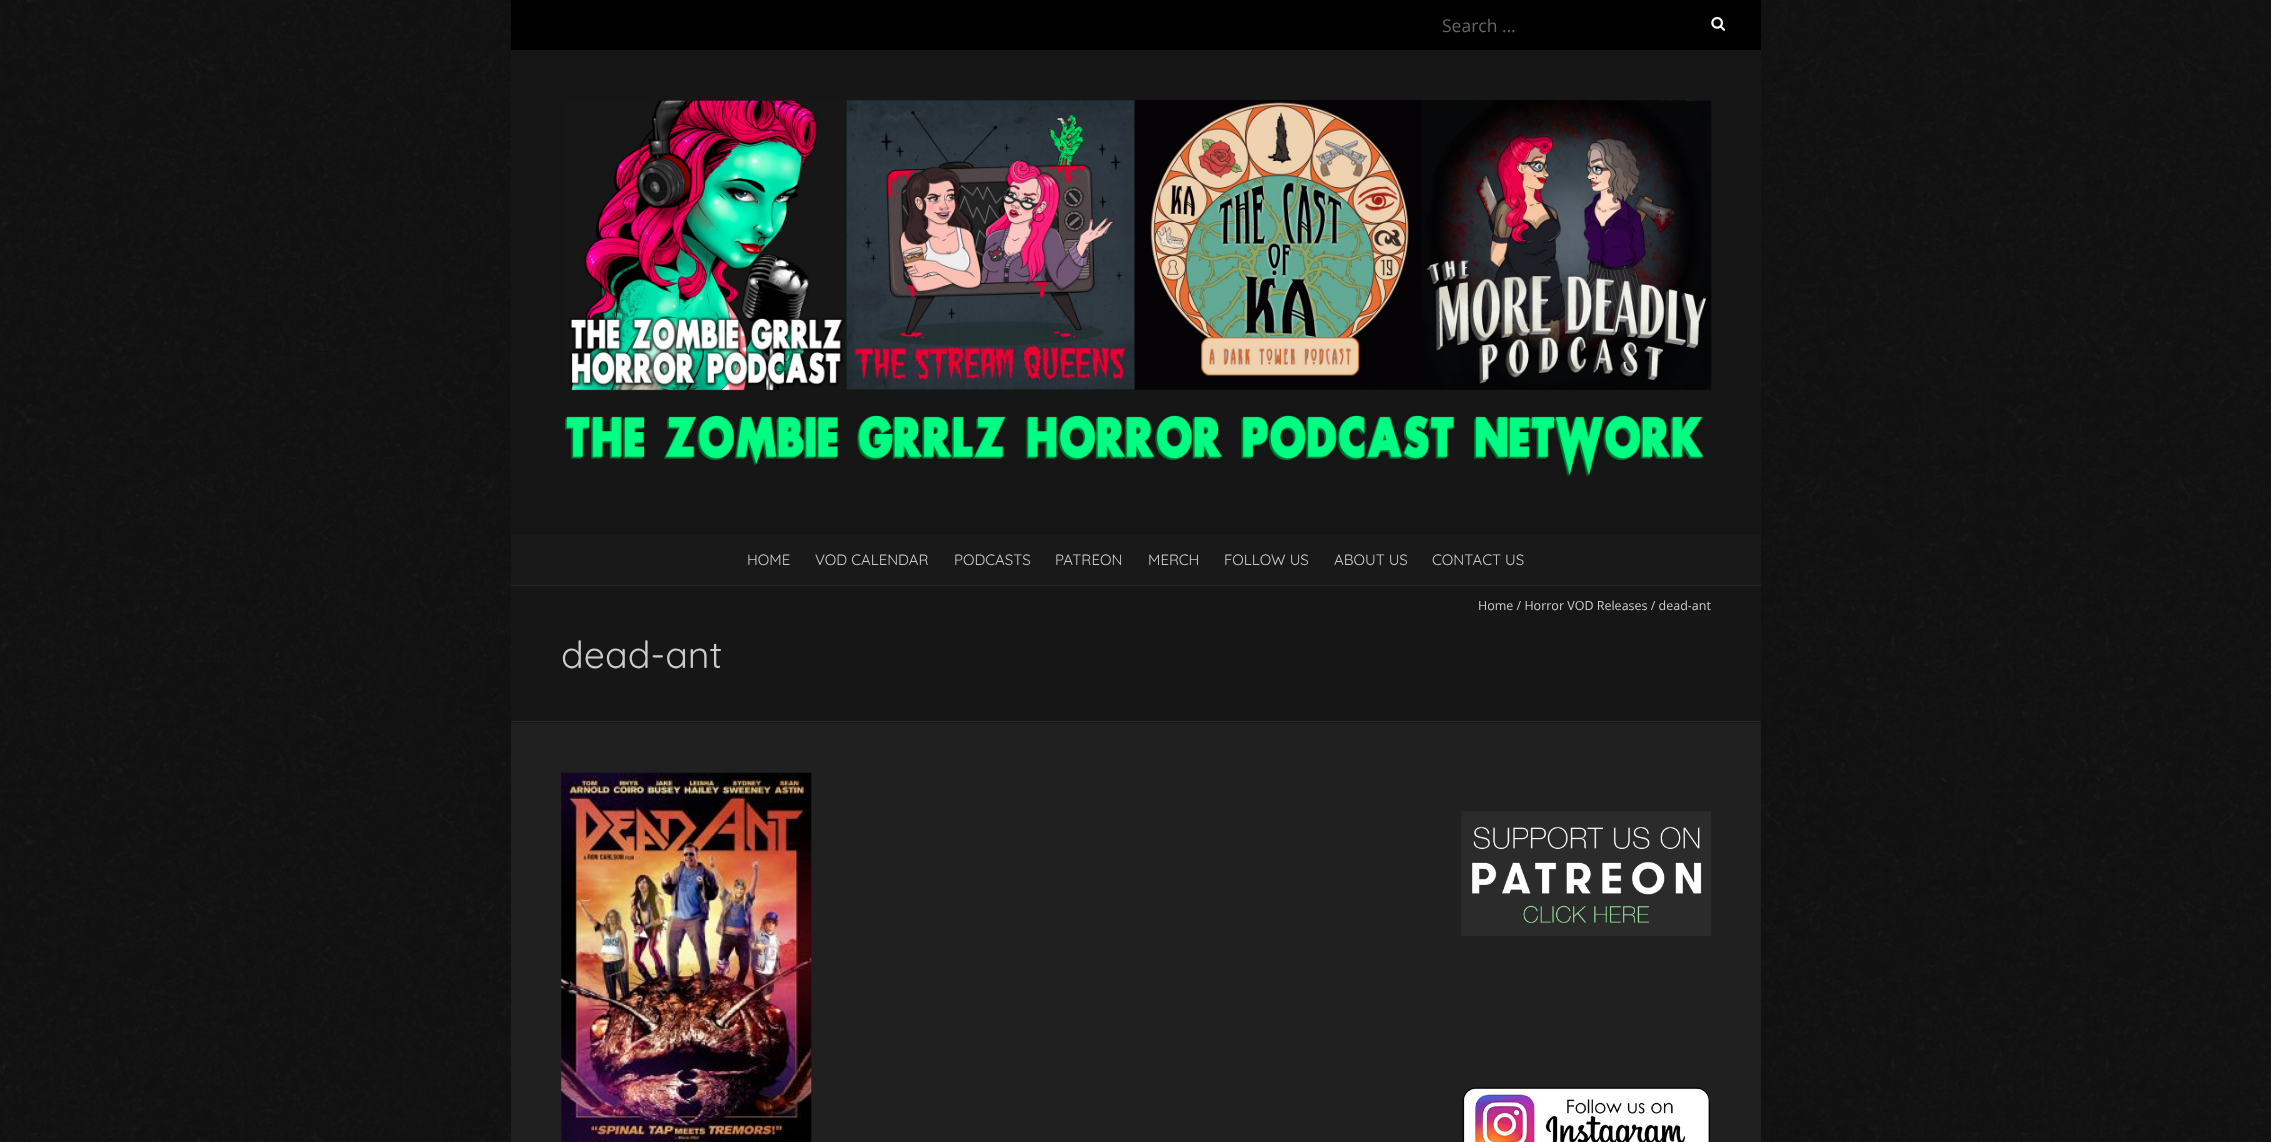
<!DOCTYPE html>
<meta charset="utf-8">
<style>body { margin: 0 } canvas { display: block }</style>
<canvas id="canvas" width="2271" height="1142"></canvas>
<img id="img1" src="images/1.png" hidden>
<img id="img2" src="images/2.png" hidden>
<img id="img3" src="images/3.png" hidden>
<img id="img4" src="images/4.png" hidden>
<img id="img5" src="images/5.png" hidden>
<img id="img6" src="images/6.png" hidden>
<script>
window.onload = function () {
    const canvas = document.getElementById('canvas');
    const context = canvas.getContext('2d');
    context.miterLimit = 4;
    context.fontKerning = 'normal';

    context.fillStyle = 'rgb(255, 255, 255)';
    context.fillRect(0, 0, 2271, 1142);
    context.drawImage(document.getElementById('img1'), 0, 0, 2271, 1142);
    context.fillStyle = 'rgb(32, 32, 32)';
    context.fillRect(511, 723, 1250, 419);
    context.fillStyle = 'rgb(0, 0, 0)';
    context.fillRect(511, 0, 1250, 50);
    context.drawImage(document.getElementById('img2'), 1711, 17, 15, 14);
    context.fillStyle = 'rgb(22, 22, 22)';
    context.fillRect(511, 50, 1250, 485);
    context.drawImage(document.getElementById('img3'), 564, 100, 1148, 377);
    context.fillStyle = 'rgb(25, 25, 25)';
    context.fillRect(511, 535, 1250, 50);
    context.fillStyle = 'rgb(37, 37, 37)';
    context.fillRect(511, 585, 1250, 1);
    context.fillStyle = 'rgb(22, 22, 22)';
    context.fillRect(511, 586, 1250, 137);
    context.fillStyle = 'rgb(41, 41, 41)';
    context.fillRect(511, 721, 1250, 1);
    context.drawImage(document.getElementById('img4'), 561, 772, 251, 370);
    context.drawImage(document.getElementById('img5'), 1461, 811, 250, 125);
    context.drawImage(document.getElementById('img6'), 1462, 1087, 248, 55);
    context.font = '17.5px Open Sans';
    context.fillStyle = 'rgb(102, 102, 102)';
    context.fillText('Search …', 1442, 32);
    context.font = '15px Quicksand';
    context.fillStyle = 'rgb(204, 204, 204)';
    context.fillText('HOME', 747, 565);
    context.fillText('VOD CALENDAR', 815, 565);
    context.fillText('PODCASTS', 954, 565);
    context.fillText('PATREON', 1055, 565);
    context.fillText('MERCH', 1148, 565);
    context.fillText('FOLLOW US', 1224, 565);
    context.fillText('ABOUT US', 1334, 565);
    context.fillText('CONTACT US', 1432, 565);
    context.font = '12.5px Open Sans';
    context.fillText('Home / Horror VOD Releases / dead-ant', 1478, 610);
    context.font = '37.5px Quicksand';
    context.fillText('dead-ant', 561, 668);
};
</script>
